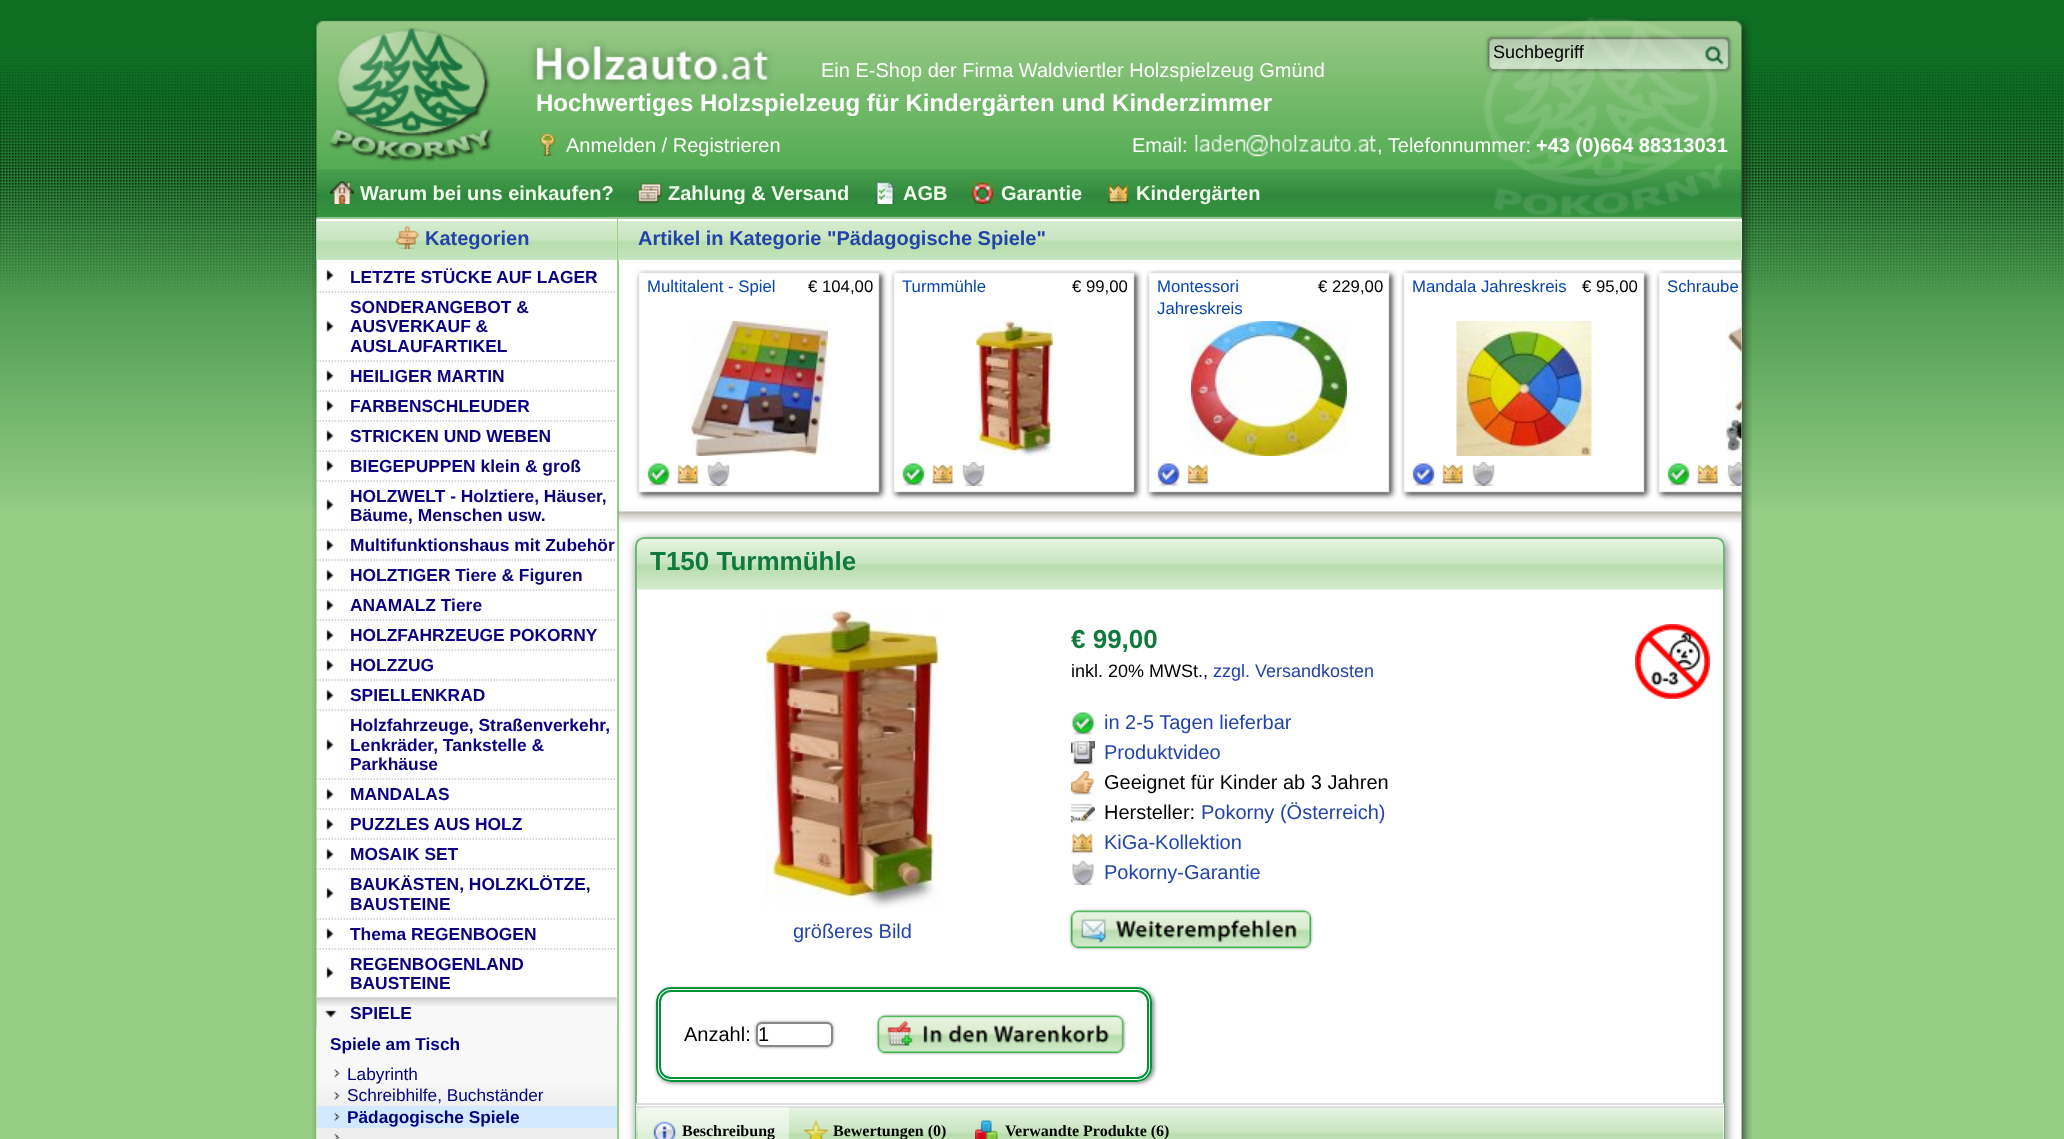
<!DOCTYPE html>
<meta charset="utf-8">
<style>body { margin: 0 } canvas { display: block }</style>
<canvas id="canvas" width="2064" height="1139"></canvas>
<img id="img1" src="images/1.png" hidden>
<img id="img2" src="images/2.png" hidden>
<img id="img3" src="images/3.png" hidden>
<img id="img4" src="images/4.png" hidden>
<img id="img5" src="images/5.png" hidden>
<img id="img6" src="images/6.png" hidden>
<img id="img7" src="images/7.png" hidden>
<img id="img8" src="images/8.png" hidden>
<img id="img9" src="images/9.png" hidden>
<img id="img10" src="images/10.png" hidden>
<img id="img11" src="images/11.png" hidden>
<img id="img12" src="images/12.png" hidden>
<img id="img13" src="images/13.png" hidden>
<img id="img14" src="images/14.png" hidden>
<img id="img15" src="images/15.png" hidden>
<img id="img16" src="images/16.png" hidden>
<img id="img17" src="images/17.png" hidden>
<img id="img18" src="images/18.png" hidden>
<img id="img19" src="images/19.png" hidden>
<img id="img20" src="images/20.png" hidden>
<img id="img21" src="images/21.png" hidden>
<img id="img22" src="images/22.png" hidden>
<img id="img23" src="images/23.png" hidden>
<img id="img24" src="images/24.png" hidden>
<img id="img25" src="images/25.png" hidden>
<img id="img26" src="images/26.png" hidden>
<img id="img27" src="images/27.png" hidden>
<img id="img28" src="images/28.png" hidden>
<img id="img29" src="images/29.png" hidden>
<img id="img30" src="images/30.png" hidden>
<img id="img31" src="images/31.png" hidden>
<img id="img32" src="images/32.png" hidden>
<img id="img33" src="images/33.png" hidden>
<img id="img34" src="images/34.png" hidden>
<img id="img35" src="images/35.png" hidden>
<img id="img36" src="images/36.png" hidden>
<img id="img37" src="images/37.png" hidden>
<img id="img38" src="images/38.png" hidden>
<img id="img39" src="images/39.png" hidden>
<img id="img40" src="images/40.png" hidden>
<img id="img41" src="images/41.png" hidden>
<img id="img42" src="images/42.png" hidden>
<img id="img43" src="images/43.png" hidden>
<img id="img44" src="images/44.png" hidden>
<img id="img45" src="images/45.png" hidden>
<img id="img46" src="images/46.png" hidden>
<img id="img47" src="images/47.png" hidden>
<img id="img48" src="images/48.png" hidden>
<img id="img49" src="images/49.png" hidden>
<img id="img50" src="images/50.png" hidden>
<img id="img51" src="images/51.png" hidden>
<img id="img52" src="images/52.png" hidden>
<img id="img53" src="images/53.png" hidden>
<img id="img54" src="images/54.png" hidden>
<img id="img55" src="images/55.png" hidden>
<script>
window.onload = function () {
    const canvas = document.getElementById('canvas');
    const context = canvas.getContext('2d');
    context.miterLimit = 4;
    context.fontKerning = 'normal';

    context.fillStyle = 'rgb(151, 206, 134)';
    context.fillRect(0, 0, 2064, 1139);
    context.drawImage(document.getElementById('img1'), 0, 0, 2064, 509);
    context.drawImage(document.getElementById('img2'), 313, 16, 1439, 202);
    context.drawImage(document.getElementById('img3'), 539, 133, 17, 23);
    context.drawImage(document.getElementById('img4'), 1195, 135, 181, 22);
    context.drawImage(document.getElementById('img5'), 330, 181, 24, 23);
    context.drawImage(document.getElementById('img6'), 637, 183, 25, 21);
    context.drawImage(document.getElementById('img7'), 873, 181, 24, 23);
    context.drawImage(document.getElementById('img8'), 970, 181, 25, 23);
    context.drawImage(document.getElementById('img9'), 1107, 184, 23, 20);
    context.drawImage(document.getElementById('img10'), 312, 217, 1440, 922);
    context.fillRect(617, 218, 2, 921);
    context.fillRect(317, 218, 300, 1);
    context.fillStyle = 'rgb(211, 235, 205)';
    context.fillRect(317, 221, 300, 39);
    context.drawImage(document.getElementById('img11'), 316, 219, 301, 41);
    context.fillStyle = 'rgb(255, 255, 255)';
    context.fillRect(317, 219, 300, 2);
    context.drawImage(document.getElementById('img12'), 396, 226, 23, 23);
    context.drawImage(document.getElementById('img13'), 326, 269, 8, 12);
    context.beginPath();
    context.moveTo(316.5, 292);
    context.lineTo(616.5, 292);
    context.strokeStyle = 'rgb(204, 204, 204)';
    context.lineWidth = 1.5;
    context.setLineDash([1.5, 1.5]);
    context.stroke();
    context.drawImage(document.getElementById('img13'), 326, 320, 8, 12);
    context.beginPath();
    context.moveTo(316.5, 361);
    context.lineTo(616.5, 361);
    context.stroke();
    context.drawImage(document.getElementById('img14'), 326, 370, 8, 12);
    context.beginPath();
    context.moveTo(316.5, 391);
    context.lineTo(616.5, 391);
    context.stroke();
    context.drawImage(document.getElementById('img14'), 326, 400, 8, 12);
    context.beginPath();
    context.moveTo(316.5, 421);
    context.lineTo(616.5, 421);
    context.stroke();
    context.drawImage(document.getElementById('img14'), 326, 430, 8, 12);
    context.beginPath();
    context.moveTo(316.5, 451);
    context.lineTo(616.5, 451);
    context.stroke();
    context.drawImage(document.getElementById('img14'), 326, 460, 8, 12);
    context.beginPath();
    context.moveTo(316.5, 481);
    context.lineTo(616.5, 481);
    context.stroke();
    context.drawImage(document.getElementById('img14'), 326, 499, 8, 12);
    context.beginPath();
    context.moveTo(316.5, 530);
    context.lineTo(616.5, 530);
    context.stroke();
    context.drawImage(document.getElementById('img13'), 326, 539, 8, 12);
    context.beginPath();
    context.moveTo(316.5, 560);
    context.lineTo(616.5, 560);
    context.stroke();
    context.drawImage(document.getElementById('img13'), 326, 569, 8, 12);
    context.beginPath();
    context.moveTo(316.5, 590);
    context.lineTo(616.5, 590);
    context.stroke();
    context.drawImage(document.getElementById('img13'), 326, 599, 8, 12);
    context.beginPath();
    context.moveTo(316.5, 620);
    context.lineTo(616.5, 620);
    context.stroke();
    context.drawImage(document.getElementById('img13'), 326, 629, 8, 12);
    context.beginPath();
    context.moveTo(316.5, 650);
    context.lineTo(616.5, 650);
    context.stroke();
    context.drawImage(document.getElementById('img13'), 326, 659, 8, 12);
    context.beginPath();
    context.moveTo(316.5, 680);
    context.lineTo(616.5, 680);
    context.stroke();
    context.drawImage(document.getElementById('img13'), 326, 689, 8, 12);
    context.beginPath();
    context.moveTo(316.5, 710);
    context.lineTo(616.5, 710);
    context.stroke();
    context.drawImage(document.getElementById('img14'), 326, 739, 8, 12);
    context.beginPath();
    context.moveTo(316.5, 779);
    context.lineTo(616.5, 779);
    context.stroke();
    context.drawImage(document.getElementById('img13'), 326, 788, 8, 12);
    context.beginPath();
    context.moveTo(316.5, 809);
    context.lineTo(616.5, 809);
    context.stroke();
    context.drawImage(document.getElementById('img13'), 326, 818, 8, 12);
    context.beginPath();
    context.moveTo(316.5, 839);
    context.lineTo(616.5, 839);
    context.stroke();
    context.drawImage(document.getElementById('img13'), 326, 848, 8, 12);
    context.beginPath();
    context.moveTo(316.5, 869);
    context.lineTo(616.5, 869);
    context.stroke();
    context.drawImage(document.getElementById('img13'), 326, 887, 8, 12);
    context.beginPath();
    context.moveTo(316.5, 919);
    context.lineTo(616.5, 919);
    context.stroke();
    context.drawImage(document.getElementById('img14'), 326, 928, 8, 12);
    context.beginPath();
    context.moveTo(316.5, 949);
    context.lineTo(616.5, 949);
    context.stroke();
    context.drawImage(document.getElementById('img14'), 326, 967, 8, 12);
    context.fillStyle = 'rgb(248, 248, 248)';
    context.fillRect(317, 998, 300, 30);
    context.drawImage(document.getElementById('img15'), 316, 997, 301, 9);
    context.beginPath();
    context.moveTo(316.5, 998);
    context.lineTo(616.5, 998);
    context.stroke();
    context.drawImage(document.getElementById('img16'), 325, 1010, 12, 8);
    context.fillStyle = 'rgb(238, 238, 238)';
    context.fillRect(616, 1028, 1, 111);
    context.drawImage(document.getElementById('img17'), 316, 1027, 301, 112);
    context.drawImage(document.getElementById('img18'), 334, 1069, 6, 9);
    context.drawImage(document.getElementById('img19'), 334, 1091, 6, 9);
    context.fillStyle = 'rgb(210, 233, 255)';
    context.fillRect(317, 1106, 300, 22);
    context.drawImage(document.getElementById('img20'), 333, 1112, 7, 9);
    context.drawImage(document.getElementById('img21'), 334, 1133, 6, 6);
    context.fillStyle = 'rgb(151, 206, 134)';
    context.fillRect(618, 218, 1124, 1);
    context.fillStyle = 'rgb(211, 235, 205)';
    context.fillRect(618, 221, 1124, 39);
    context.drawImage(document.getElementById('img22'), 618, 221, 1124, 39);
    context.fillStyle = 'rgb(255, 255, 255)';
    context.fillRect(618, 219, 1124, 2);
    context.drawImage(document.getElementById('img23'), 635, 269, 253, 232);
    context.drawImage(document.getElementById('img24'), 691, 321, 137, 135);
    context.drawImage(document.getElementById('img25'), 647, 463, 23, 23);
    context.drawImage(document.getElementById('img26'), 676, 464, 23, 21);
    context.drawImage(document.getElementById('img27'), 707, 462, 23, 24);
    context.drawImage(document.getElementById('img23'), 890, 269, 253, 232);
    context.drawImage(document.getElementById('img28'), 976, 321, 77, 135);
    context.drawImage(document.getElementById('img29'), 902, 463, 23, 23);
    context.drawImage(document.getElementById('img30'), 931, 464, 23, 21);
    context.drawImage(document.getElementById('img31'), 962, 462, 23, 24);
    context.drawImage(document.getElementById('img32'), 1145, 269, 253, 232);
    context.drawImage(document.getElementById('img33'), 1191, 321, 156, 135);
    context.drawImage(document.getElementById('img34'), 1157, 463, 23, 23);
    context.drawImage(document.getElementById('img26'), 1186, 464, 23, 21);
    context.drawImage(document.getElementById('img23'), 1400, 269, 253, 232);
    context.drawImage(document.getElementById('img35'), 1456, 321, 136, 135);
    context.drawImage(document.getElementById('img34'), 1412, 463, 23, 23);
    context.drawImage(document.getElementById('img26'), 1441, 464, 23, 21);
    context.drawImage(document.getElementById('img27'), 1472, 462, 23, 24);
    context.drawImage(document.getElementById('img36'), 1655, 269, 87, 232);
    context.drawImage(document.getElementById('img37'), 1726, 321, 16, 135);
    context.drawImage(document.getElementById('img29'), 1667, 463, 23, 23);
    context.drawImage(document.getElementById('img30'), 1696, 464, 23, 21);
    context.drawImage(document.getElementById('img38'), 1727, 462, 15, 24);
    context.drawImage(document.getElementById('img39'), 618, 511, 1124, 12);
    context.fillStyle = 'rgb(136, 136, 136)';
    context.filter = 'blur(5px)';
    context.beginPath();
    context.roundRect(636, 539, 1091, 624, 9);
    context.fill();
    context.filter = 'none';
    context.fillStyle = 'rgb(255, 255, 255)';
    context.beginPath();
    context.moveTo(644, 537);
    context.lineTo(1716, 537);
    context.bezierCurveTo(1721, 537, 1725, 541, 1725, 546);
    context.lineTo(1725, 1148);
    context.lineTo(635, 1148);
    context.lineTo(635, 546);
    context.bezierCurveTo(635, 541, 639, 537, 644, 537);
    context.closePath();
    context.fill();
    context.drawImage(document.getElementById('img40'), 634, 538, 1091, 52);
    context.beginPath();
    context.moveTo(644, 538);
    context.lineTo(1716, 538);
    context.bezierCurveTo(1720.5, 538, 1724, 541.5, 1724, 546);
    context.lineTo(1724, 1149);
    context.lineTo(636, 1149);
    context.lineTo(636, 546);
    context.bezierCurveTo(636, 541.5, 639.5, 538, 644, 538);
    context.closePath();
    context.strokeStyle = 'rgb(110, 185, 120)';
    context.lineWidth = 2;
    context.setLineDash([]);
    context.stroke();
    context.drawImage(document.getElementById('img41'), 1635, 624, 75, 75);
    context.drawImage(document.getElementById('img42'), 1072, 712, 22, 23);
    context.drawImage(document.getElementById('img43'), 1071, 741, 24, 24);
    context.drawImage(document.getElementById('img44'), 1071, 771, 23, 24);
    context.drawImage(document.getElementById('img45'), 1071, 803, 24, 20);
    context.drawImage(document.getElementById('img46'), 1071, 833, 23, 21);
    context.drawImage(document.getElementById('img47'), 1072, 861, 22, 24);
    context.fillStyle = 'rgb(136, 136, 136)';
    context.filter = 'blur(1.5px)';
    context.beginPath();
    context.roundRect(1071, 911, 240, 37, 8);
    context.fill();
    context.filter = 'none';
    context.drawImage(document.getElementById('img48'), 1071, 910, 240, 38);
    context.drawImage(document.getElementById('img49'), 766, 609, 173, 300);
    context.save();
    context.beginPath();
    context.moveTo(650, 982);
    context.lineTo(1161, 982);
    context.lineTo(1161, 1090);
    context.lineTo(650, 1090);
    context.closePath();
    context.moveTo(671, 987);
    context.lineTo(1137, 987);
    context.bezierCurveTo(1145.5, 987, 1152, 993.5, 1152, 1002);
    context.lineTo(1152, 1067);
    context.bezierCurveTo(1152, 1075.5, 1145.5, 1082, 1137, 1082);
    context.lineTo(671, 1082);
    context.bezierCurveTo(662.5, 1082, 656, 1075.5, 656, 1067);
    context.lineTo(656, 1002);
    context.bezierCurveTo(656, 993.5, 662.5, 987, 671, 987);
    context.closePath();
    context.clip('evenodd');
    context.filter = 'blur(2px)';
    context.beginPath();
    context.roundRect(657, 989, 497, 94, 15);
    context.fill();
    context.filter = 'none';
    context.restore();
    context.beginPath();
    context.roundRect(657, 988, 494, 93, 14);
    context.strokeStyle = 'rgb(0, 147, 57)';
    context.stroke();
    context.beginPath();
    context.roundRect(660, 991, 488, 87, 11);
    context.stroke();
    context.filter = 'blur(1.5px)';
    context.beginPath();
    context.roundRect(756, 1022, 77, 25, 6);
    context.fill();
    context.filter = 'none';
    context.fillStyle = 'rgb(255, 255, 255)';
    context.beginPath();
    context.roundRect(757, 1023, 75, 23, 5);
    context.fill();
    context.strokeStyle = 'rgb(136, 136, 136)';
    context.stroke();
    context.fillStyle = 'rgb(136, 136, 136)';
    context.filter = 'blur(1.5px)';
    context.beginPath();
    context.roundRect(878, 1016, 246, 37, 8);
    context.fill();
    context.filter = 'none';
    context.drawImage(document.getElementById('img50'), 877, 1015, 247, 38);
    context.fillStyle = 'rgb(255, 255, 255)';
    context.fillRect(636, 1105, 1088, 34);
    context.drawImage(document.getElementById('img51'), 636, 1108, 1088, 31);
    context.fillStyle = 'rgb(221, 221, 221)';
    context.fillRect(636, 1103, 1088, 2);
    context.fillRect(636, 1106, 1088, 2);
    context.drawImage(document.getElementById('img52'), 637, 1107, 152, 32);
    context.drawImage(document.getElementById('img53'), 653, 1121, 23, 18);
    context.drawImage(document.getElementById('img54'), 804, 1120, 24, 19);
    context.drawImage(document.getElementById('img55'), 975, 1120, 23, 19);
    context.font = '18px Liberation Sans';
    context.fillStyle = 'rgb(0, 0, 0)';
    context.fillText('Suchbegriff', 1493, 58);
    context.font = '20px Liberation Sans';
    context.fillStyle = 'rgb(255, 255, 255)';
    context.fillText('Ein E-Shop der Firma Waldviertler Holzspielzeug Gmünd', 821, 77);
    context.font = 'bold 24px Liberation Sans';
    context.fillText('Hochwertiges Holzspielzeug für Kindergärten und Kinderzimmer', 536, 111);
    context.font = '20px Liberation Sans';
    context.fillText('Anmelden / Registrieren', 566, 152);
    context.fillText('Email:', 1132, 152);
    context.fillText(', Telefonnummer:', 1377, 152);
    context.font = 'bold 20px Liberation Sans';
    context.fillText('+43 (0)664 88313031', 1536, 152);
    context.fillStyle = 'rgb(241, 252, 237)';
    context.fillText('Warum bei uns einkaufen?', 360, 200);
    context.fillText('Zahlung & Versand', 668, 200);
    context.fillText('AGB', 903, 200);
    context.fillText('Garantie', 1001, 200);
    context.fillText('Kindergärten', 1136, 200);
    context.fillStyle = 'rgb(34, 68, 170)';
    context.fillText('Kategorien', 425, 245);
    context.font = 'bold 17.4px Liberation Sans';
    context.fillStyle = 'rgb(11, 0, 128)';
    context.fillText('LETZTE STÜCKE AUF LAGER', 350, 283);
    context.fillText('SONDERANGEBOT &', 350, 313);
    context.fillText('AUSVERKAUF &', 350, 332);
    context.fillText('AUSLAUFARTIKEL', 350, 352);
    context.fillText('HEILIGER MARTIN', 350, 382);
    context.fillText('FARBENSCHLEUDER', 350, 412);
    context.fillText('STRICKEN UND WEBEN', 350, 442);
    context.fillText('BIEGEPUPPEN klein & groß', 350, 472);
    context.fillText('HOLZWELT - Holztiere, Häuser,', 350, 502);
    context.fillText('Bäume, Menschen usw.', 350, 521);
    context.fillText('Multifunktionshaus mit Zubehör', 350, 551);
    context.fillText('HOLZTIGER Tiere & Figuren', 350, 581);
    context.fillText('ANAMALZ Tiere', 350, 611);
    context.fillText('HOLZFAHRZEUGE POKORNY', 350, 641);
    context.fillText('HOLZZUG', 350, 671);
    context.fillText('SPIELLENKRAD', 350, 701);
    context.fillText('Holzfahrzeuge, Straßenverkehr,', 350, 731);
    context.fillText('Lenkräder, Tankstelle &', 350, 751);
    context.fillText('Parkhäuse', 350, 770);
    context.fillText('MANDALAS', 350, 800);
    context.fillText('PUZZLES AUS HOLZ', 350, 830);
    context.fillText('MOSAIK SET', 350, 860);
    context.fillText('BAUKÄSTEN, HOLZKLÖTZE,', 350, 890);
    context.fillText('BAUSTEINE', 350, 910);
    context.fillText('Thema REGENBOGEN', 350, 940);
    context.fillText('REGENBOGENLAND', 350, 970);
    context.fillText('BAUSTEINE', 350, 989);
    context.fillText('SPIELE', 350, 1019);
    context.font = 'bold 17.25px Liberation Sans';
    context.fillStyle = 'rgb(0, 0, 128)';
    context.fillText('Spiele am Tisch', 330, 1050);
    context.font = '17.25px Liberation Sans';
    context.fillText('Labyrinth', 347, 1080);
    context.fillText('Schreibhilfe, Buchständer', 347, 1101);
    context.font = 'bold 17.25px Liberation Sans';
    context.fillText('Pädagogische Spiele', 347, 1123);
    context.font = 'bold 20px Liberation Sans';
    context.fillStyle = 'rgb(34, 68, 170)';
    context.fillText('Artikel in Kategorie "Pädagogische Spiele"', 638, 245);
    context.font = '16.75px Liberation Sans';
    context.fillStyle = 'rgb(6, 69, 173)';
    context.fillText('Multitalent - Spiel', 647, 292);
    context.fillStyle = 'rgb(0, 0, 0)';
    context.fillText('€ 104,00', 808, 292);
    context.fillStyle = 'rgb(6, 69, 173)';
    context.fillText('Turmmühle', 902, 292);
    context.fillStyle = 'rgb(0, 0, 0)';
    context.fillText('€ 99,00', 1072, 292);
    context.fillStyle = 'rgb(6, 69, 173)';
    context.fillText('Montessori', 1157, 292);
    context.fillStyle = 'rgb(0, 0, 0)';
    context.fillText('€ 229,00', 1318, 292);
    context.fillStyle = 'rgb(6, 69, 173)';
    context.fillText('Jahreskreis', 1157, 314);
    context.fillText('Mandala Jahreskreis', 1412, 292);
    context.fillStyle = 'rgb(0, 0, 0)';
    context.fillText('€ 95,00', 1582, 292);
    context.fillStyle = 'rgb(6, 69, 173)';
    context.fillText('Schraube', 1667, 292);
    context.font = 'bold 26px Liberation Sans';
    context.fillStyle = 'rgb(16, 122, 62)';
    context.fillText('T150 Turmmühle', 650, 570);
    context.fillText('€ 99,00', 1071, 648);
    context.font = '18px Liberation Sans';
    context.fillStyle = 'rgb(0, 0, 0)';
    context.fillText('inkl. 20% MWSt.,', 1071, 677);
    context.fillStyle = 'rgb(34, 68, 170)';
    context.fillText('zzgl. Versandkosten', 1213, 677);
    context.font = '20px Liberation Sans';
    context.fillText('in 2-5 Tagen lieferbar', 1104, 729);
    context.fillText('Produktvideo', 1104, 759);
    context.fillStyle = 'rgb(0, 0, 0)';
    context.fillText('Geeignet für Kinder ab 3 Jahren', 1104, 789);
    context.fillText('Hersteller:', 1104, 819);
    context.fillStyle = 'rgb(34, 68, 170)';
    context.fillText('Pokorny (Österreich)', 1201, 819);
    context.fillText('KiGa-Kollektion', 1104, 849);
    context.fillText('Pokorny-Garantie', 1104, 879);
    context.fillText('größeres Bild', 793, 938);
    context.fillStyle = 'rgb(0, 0, 0)';
    context.fillText('Anzahl:', 684, 1041);
    context.fillText('1', 758, 1041);
    context.font = 'bold 16px Liberation Serif';
    context.fillText('Beschreibung', 682, 1136);
    context.fillText('Bewertungen (0)', 833, 1136);
    context.fillText('Verwandte Produkte (6)', 1005, 1136);
};
</script>
